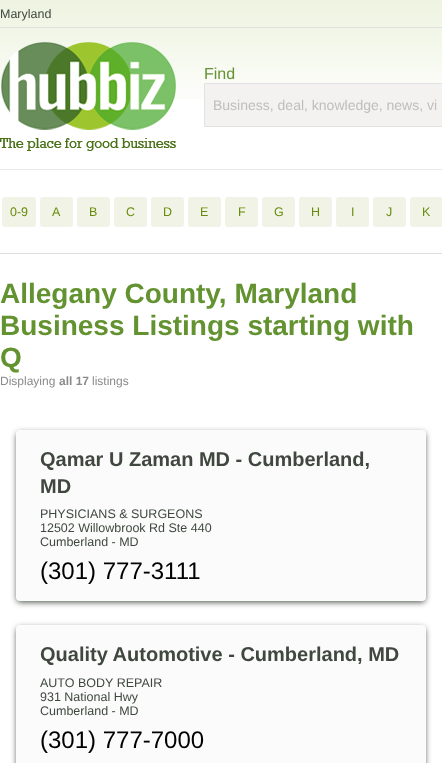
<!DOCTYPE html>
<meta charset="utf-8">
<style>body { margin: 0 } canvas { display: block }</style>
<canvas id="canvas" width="442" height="763"></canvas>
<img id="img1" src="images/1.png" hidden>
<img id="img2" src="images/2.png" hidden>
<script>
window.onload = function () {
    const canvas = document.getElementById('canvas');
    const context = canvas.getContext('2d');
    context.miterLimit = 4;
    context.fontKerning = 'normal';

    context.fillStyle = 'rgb(255, 255, 255)';
    context.fillRect(0, 0, 442, 763);
    context.drawImage(document.getElementById('img1'), 0, 0, 442, 99);
    context.fillStyle = 'rgb(233, 234, 233)';
    context.fillRect(0, 169, 442, 1);
    context.fillStyle = 'rgb(224, 225, 224)';
    context.fillRect(0, 27, 442, 1);
    context.drawImage(document.getElementById('img2'), 0, 42, 176, 109);
    context.fillStyle = 'rgb(244, 242, 240)';
    context.beginPath();
    context.rect(204.5, 83.5, 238, 43);
    context.fill();
    context.strokeStyle = 'rgb(226, 226, 226)';
    context.stroke();
    context.fillStyle = 'rgb(221, 221, 221)';
    context.fillRect(0, 253, 442, 1);
    context.fillStyle = 'rgb(240, 243, 230)';
    context.beginPath();
    context.roundRect(2, 197, 34, 30, 3);
    context.fill();
    context.beginPath();
    context.roundRect(40, 197, 33, 30, 3);
    context.fill();
    context.beginPath();
    context.roundRect(77, 197, 33, 30, 3);
    context.fill();
    context.beginPath();
    context.roundRect(114, 197, 33, 30, 3);
    context.fill();
    context.beginPath();
    context.roundRect(151, 197, 33, 30, 3);
    context.fill();
    context.beginPath();
    context.roundRect(188, 197, 33, 30, 3);
    context.fill();
    context.beginPath();
    context.roundRect(225, 197, 33, 30, 3);
    context.fill();
    context.beginPath();
    context.roundRect(262, 197, 33, 30, 3);
    context.fill();
    context.beginPath();
    context.roundRect(299, 197, 33, 30, 3);
    context.fill();
    context.beginPath();
    context.roundRect(336, 197, 33, 30, 3);
    context.fill();
    context.beginPath();
    context.roundRect(373, 197, 33, 30, 3);
    context.fill();
    context.beginPath();
    context.roundRect(410, 197, 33, 30, 3);
    context.fill();
    context.fillStyle = 'rgb(63, 71, 63)';
    context.filter = 'blur(3px)';
    context.beginPath();
    context.roundRect(17, 433, 408, 169, 3);
    context.fill();
    context.filter = 'none';
    context.fillStyle = 'rgb(251, 251, 251)';
    context.beginPath();
    context.roundRect(16, 430, 410, 171, 4);
    context.fill();
    context.fillStyle = 'rgb(63, 71, 63)';
    context.filter = 'blur(3px)';
    context.beginPath();
    context.roundRect(17, 628, 408, 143, 3);
    context.fill();
    context.filter = 'none';
    context.fillStyle = 'rgb(251, 251, 251)';
    context.beginPath();
    context.roundRect(16, 625, 410, 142, 4);
    context.fill();
    context.font = '12.5px Liberation Sans';
    context.fillStyle = 'rgb(63, 71, 63)';
    context.fillText('Maryland', 0, 18);
    context.font = '16px Liberation Sans';
    context.fillStyle = 'rgb(99, 146, 48)';
    context.fillText('Find', 204, 79);
    context.font = '14px Liberation Sans';
    context.fillStyle = 'rgb(190, 190, 190)';
    context.fillText('Business, deal, knowledge, news, vi', 213, 110);
    context.font = '12.5px Liberation Sans';
    context.fillStyle = 'rgb(104, 139, 9)';
    context.fillText('0-9', 10, 216);
    context.fillText('A', 52, 216);
    context.fillText('B', 89, 216);
    context.fillText('C', 126, 216);
    context.fillText('D', 163, 216);
    context.fillText('E', 200, 216);
    context.fillText('F', 238, 216);
    context.fillText('G', 274, 216);
    context.fillText('H', 311, 216);
    context.fillText('I', 351, 216);
    context.fillText('J', 386, 216);
    context.fillText('K', 422, 216);
    context.font = 'bold 28px Liberation Sans';
    context.fillStyle = 'rgb(99, 146, 48)';
    context.fillText('Allegany County, Maryland', 0, 303);
    context.fillText('Business Listings starting with', 0, 335);
    context.fillText('Q', 0, 367);
    context.font = '12px Liberation Sans';
    context.fillStyle = 'rgb(139, 139, 139)';
    context.fillText('Displaying', 0, 385);
    context.font = 'bold 12px Liberation Sans';
    context.fillText('all 17', 59, 385);
    context.font = '12px Liberation Sans';
    context.fillText('listings', 92, 385);
    context.font = 'bold 20px Liberation Sans';
    context.fillStyle = 'rgb(63, 71, 63)';
    context.fillText('Qamar U Zaman MD - Cumberland,', 40, 466);
    context.fillText('MD', 40, 493);
    context.font = '12.5px Liberation Sans';
    context.fillText('PHYSICIANS & SURGEONS', 40, 518);
    context.fillText('12502 Willowbrook Rd Ste 440', 40, 532);
    context.fillText('Cumberland - MD', 40, 546);
    context.font = '24px Liberation Sans';
    context.fillStyle = 'rgb(0, 0, 0)';
    context.fillText('(301) 777-3111', 40, 579);
    context.font = 'bold 20px Liberation Sans';
    context.fillStyle = 'rgb(63, 71, 63)';
    context.fillText('Quality Automotive - Cumberland, MD', 40, 661);
    context.font = '12.5px Liberation Sans';
    context.fillText('AUTO BODY REPAIR', 40, 687);
    context.fillText('931 National Hwy', 40, 701);
    context.fillText('Cumberland - MD', 40, 715);
    context.font = '24px Liberation Sans';
    context.fillStyle = 'rgb(0, 0, 0)';
    context.fillText('(301) 777-7000', 40, 748);
};
</script>
